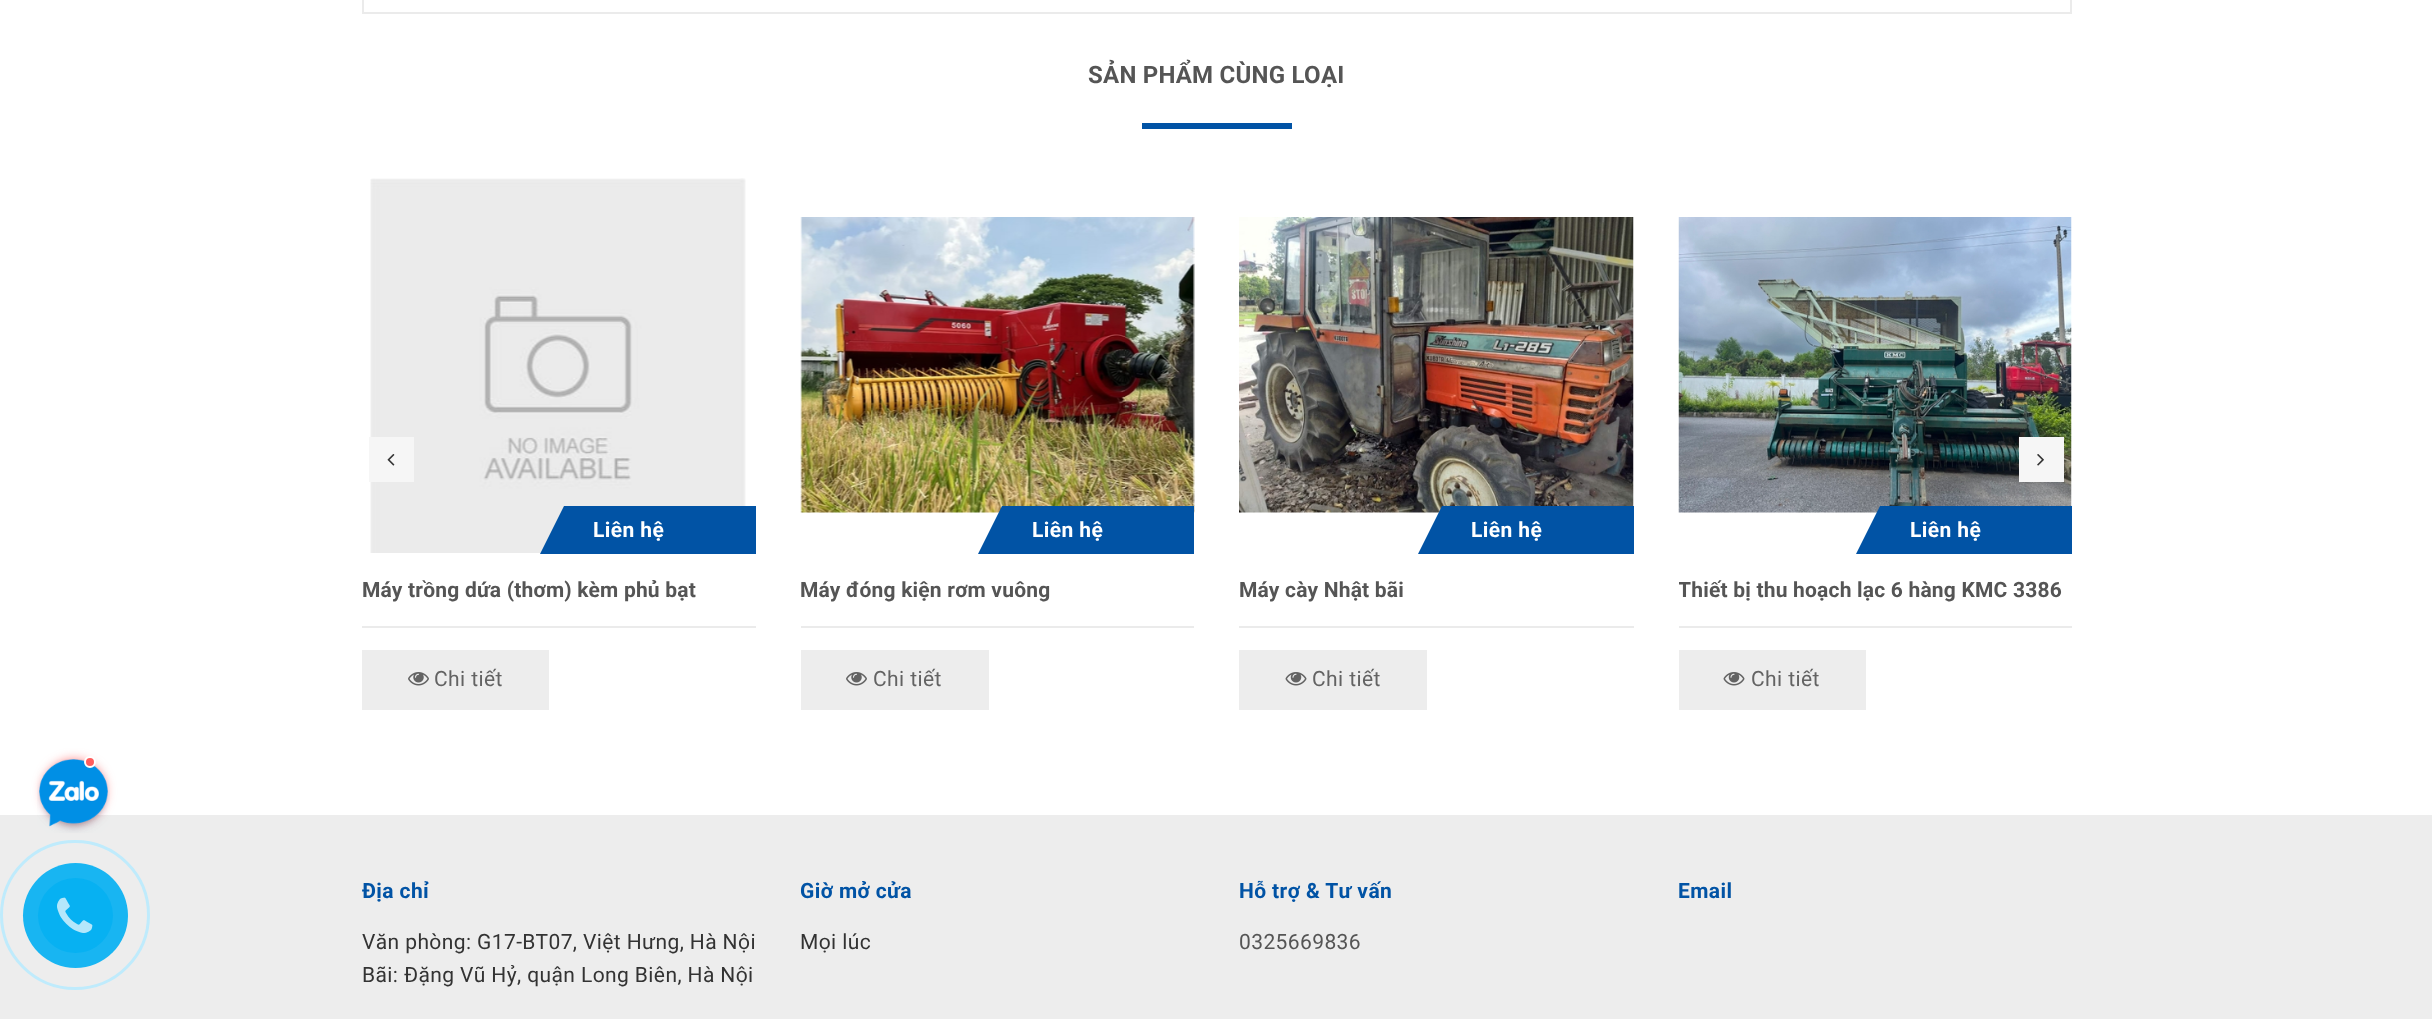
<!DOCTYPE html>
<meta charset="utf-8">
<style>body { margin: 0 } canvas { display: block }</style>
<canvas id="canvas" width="2432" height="1019"></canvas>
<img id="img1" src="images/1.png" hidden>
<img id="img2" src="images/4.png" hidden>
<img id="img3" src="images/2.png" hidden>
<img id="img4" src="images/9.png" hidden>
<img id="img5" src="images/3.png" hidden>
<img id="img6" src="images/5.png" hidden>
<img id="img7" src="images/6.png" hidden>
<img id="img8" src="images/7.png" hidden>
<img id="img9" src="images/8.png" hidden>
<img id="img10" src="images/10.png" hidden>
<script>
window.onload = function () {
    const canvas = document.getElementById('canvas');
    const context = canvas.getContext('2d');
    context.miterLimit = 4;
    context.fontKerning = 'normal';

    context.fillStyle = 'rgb(255, 255, 255)';
    context.fillRect(0, 0, 2432, 1019);
    context.fillStyle = 'rgb(237, 237, 237)';
    context.fillRect(0, 815, 2432, 204);
    context.fillStyle = 'rgb(255, 93, 93)';
    context.filter = 'blur(6px)';
    context.beginPath();
    context.roundRect(44, 761, 60, 60, 30);
    context.fill();
    context.filter = 'none';
    context.drawImage(document.getElementById('img1'), 37, 759, 73, 74);
    context.beginPath();
    context.arc(90, 762, 5, 0, 2 * Math.PI);
    context.fill();
    context.strokeStyle = 'rgb(255, 255, 255)';
    context.lineWidth = 2;
    context.stroke();
    context.strokeStyle = 'rgb(235, 235, 235)';
    context.strokeRect(363, -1, 1708, 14);
    context.fillStyle = 'rgb(1, 83, 165)';
    context.fillRect(1142, 123, 150, 6);
    context.drawImage(document.getElementById('img2'), 370, 178, 376, 375);
    context.fillStyle = 'rgb(246, 246, 246)';
    context.fillRect(369, 437, 45, 45);
    context.drawImage(document.getElementById('img3'), 387, 454, 8, 12);
    context.drawImage(document.getElementById('img4'), 1678, 217, 394, 296);
    context.fillRect(2019, 437, 45, 45);
    context.drawImage(document.getElementById('img5'), 2037, 454, 7, 12);
    context.fillStyle = 'rgb(1, 83, 165)';
    context.fillRect(564, 506, 192, 48);
    context.beginPath();
    context.moveTo(564, 506);
    context.lineTo(564, 554);
    context.lineTo(540, 554);
    context.closePath();
    context.fill();
    context.fillStyle = 'rgb(235, 235, 235)';
    context.fillRect(362, 626, 394, 2);
    context.fillStyle = 'rgb(237, 237, 237)';
    context.fillRect(362, 650, 187, 60);
    context.drawImage(document.getElementById('img6'), 408, 672, 21, 14);
    context.drawImage(document.getElementById('img7'), 800, 217, 395, 296);
    context.fillStyle = 'rgb(1, 83, 165)';
    context.fillRect(1002, 506, 192, 48);
    context.beginPath();
    context.moveTo(1002, 506);
    context.lineTo(1002, 554);
    context.lineTo(978, 554);
    context.closePath();
    context.fill();
    context.fillStyle = 'rgb(235, 235, 235)';
    context.fillRect(801, 626, 393, 2);
    context.fillStyle = 'rgb(237, 237, 237)';
    context.fillRect(801, 650, 188, 60);
    context.drawImage(document.getElementById('img6'), 846, 672, 21, 14);
    context.drawImage(document.getElementById('img8'), 1239, 217, 395, 296);
    context.fillStyle = 'rgb(1, 83, 165)';
    context.fillRect(1442, 506, 192, 48);
    context.beginPath();
    context.moveTo(1442, 506);
    context.lineTo(1442, 554);
    context.lineTo(1418, 554);
    context.closePath();
    context.fill();
    context.fillStyle = 'rgb(235, 235, 235)';
    context.fillRect(1239, 626, 395, 2);
    context.fillStyle = 'rgb(237, 237, 237)';
    context.fillRect(1239, 650, 188, 60);
    context.drawImage(document.getElementById('img9'), 1285, 672, 22, 14);
    context.fillStyle = 'rgb(1, 83, 165)';
    context.fillRect(1880, 506, 192, 48);
    context.beginPath();
    context.moveTo(1880, 506);
    context.lineTo(1880, 554);
    context.lineTo(1856, 554);
    context.closePath();
    context.fill();
    context.fillStyle = 'rgb(235, 235, 235)';
    context.fillRect(1679, 626, 393, 2);
    context.fillStyle = 'rgb(237, 237, 237)';
    context.fillRect(1679, 650, 187, 60);
    context.drawImage(document.getElementById('img9'), 1723, 672, 22, 14);
    context.beginPath();
    context.arc(75, 915, 73.5, 0, 2 * Math.PI);
    context.strokeStyle = 'rgb(191, 235, 252)';
    context.lineWidth = 3;
    context.stroke();
    context.fillStyle = 'rgb(24, 181, 242)';
    context.beginPath();
    context.arc(75.5, 915.5, 52.5, 0, 2 * Math.PI);
    context.fill();
    context.fillStyle = 'rgb(7, 177, 242)';
    context.beginPath();
    context.arc(75.5, 915.5, 37.5, 0, 2 * Math.PI);
    context.fill();
    context.drawImage(document.getElementById('img10'), 57, 897, 36, 36);
    context.letterSpacing = '0.25px';
    context.font = 'bold 24px Roboto';
    context.fillStyle = 'rgb(85, 85, 85)';
    context.fillText('SẢN PHẨM CÙNG LOẠI', 1088, 83);
    context.letterSpacing = '0.4px';
    context.font = 'bold 21px Roboto';
    context.fillStyle = 'rgb(255, 255, 255)';
    context.fillText('Liên hệ', 593, 537);
    context.letterSpacing = '0.2px';
    context.fillStyle = 'rgb(85, 85, 85)';
    context.fillText('Máy trồng dứa (thơm) kèm phủ bạt', 362, 597);
    context.letterSpacing = '0.4px';
    context.font = '21px Roboto';
    context.fillStyle = 'rgb(99, 99, 99)';
    context.fillText('Chi tiết', 434, 686);
    context.font = 'bold 21px Roboto';
    context.fillStyle = 'rgb(255, 255, 255)';
    context.fillText('Liên hệ', 1032, 537);
    context.letterSpacing = '0.2px';
    context.fillStyle = 'rgb(85, 85, 85)';
    context.fillText('Máy đóng kiện rơm vuông', 800, 597);
    context.letterSpacing = '0.4px';
    context.font = '21px Roboto';
    context.fillStyle = 'rgb(99, 99, 99)';
    context.fillText('Chi tiết', 873, 686);
    context.font = 'bold 21px Roboto';
    context.fillStyle = 'rgb(255, 255, 255)';
    context.fillText('Liên hệ', 1471, 537);
    context.letterSpacing = '0.2px';
    context.fillStyle = 'rgb(85, 85, 85)';
    context.fillText('Máy cày Nhật bãi', 1239, 597);
    context.letterSpacing = '0.4px';
    context.font = '21px Roboto';
    context.fillStyle = 'rgb(99, 99, 99)';
    context.fillText('Chi tiết', 1312, 686);
    context.font = 'bold 21px Roboto';
    context.fillStyle = 'rgb(255, 255, 255)';
    context.fillText('Liên hệ', 1910, 537);
    context.save();
    context.beginPath();
    context.rect(1679, 576, 393, 27);
    context.clip();
    context.letterSpacing = '0.2px';
    context.fillStyle = 'rgb(85, 85, 85)';
    context.fillText('Thiết bị thu hoạch lạc 6 hàng KMC 3386', 1678, 597);
    context.restore();
    context.font = '21px Roboto';
    context.fillStyle = 'rgb(99, 99, 99)';
    context.fillText('Chi tiết', 1751, 686);
    context.font = 'bold 21px Roboto';
    context.fillStyle = 'rgb(1, 83, 165)';
    context.fillText('Địa chỉ', 362, 898);
    context.font = '21px Roboto';
    context.fillStyle = 'rgb(51, 51, 51)';
    context.fillText('Văn phòng: G17-BT07, Việt Hưng, Hà Nội', 362, 949);
    context.fillText('Bãi: Đặng Vũ Hỷ, quận Long Biên, Hà Nội', 362, 982);
    context.font = 'bold 21px Roboto';
    context.fillStyle = 'rgb(1, 83, 165)';
    context.fillText('Giờ mở cửa', 800, 898);
    context.font = '21px Roboto';
    context.fillStyle = 'rgb(51, 51, 51)';
    context.fillText('Mọi lúc', 800, 949);
    context.font = 'bold 21px Roboto';
    context.fillStyle = 'rgb(1, 83, 165)';
    context.fillText('Hỗ trợ & Tư vấn', 1239, 898);
    context.font = '21px Roboto';
    context.fillStyle = 'rgb(85, 85, 85)';
    context.fillText('0325669836', 1239, 949);
    context.font = 'bold 21px Roboto';
    context.fillStyle = 'rgb(1, 83, 165)';
    context.fillText('Email', 1678, 898);
};
</script>
